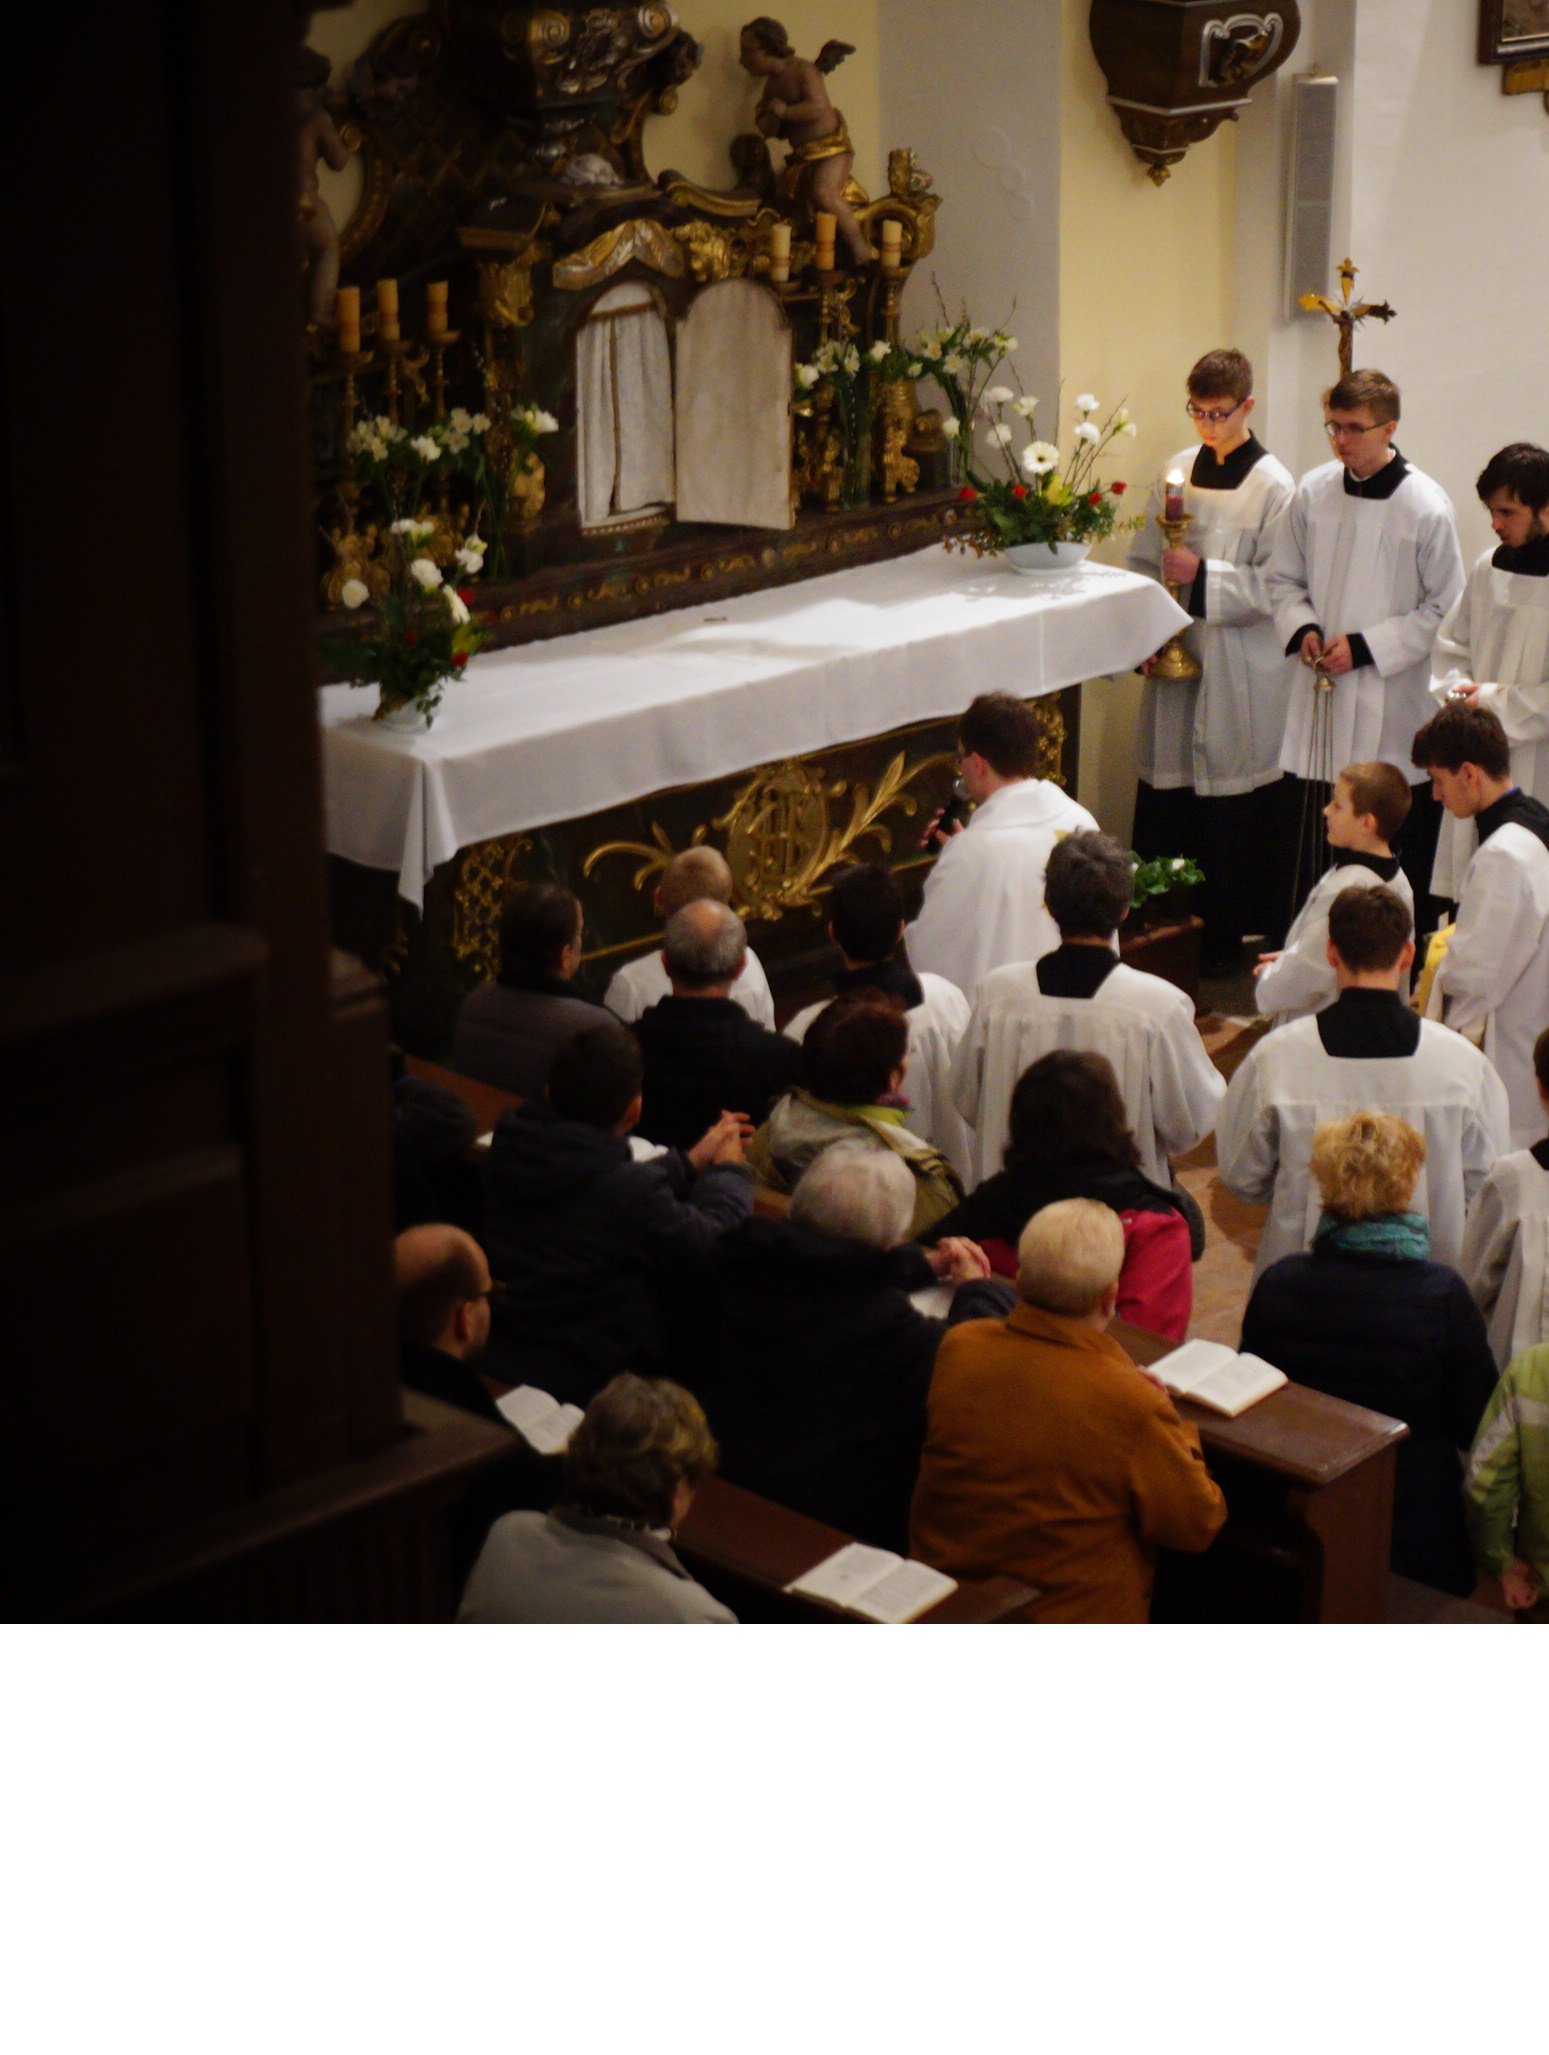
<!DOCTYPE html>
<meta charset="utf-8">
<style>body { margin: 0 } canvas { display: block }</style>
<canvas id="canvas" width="1549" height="2055"></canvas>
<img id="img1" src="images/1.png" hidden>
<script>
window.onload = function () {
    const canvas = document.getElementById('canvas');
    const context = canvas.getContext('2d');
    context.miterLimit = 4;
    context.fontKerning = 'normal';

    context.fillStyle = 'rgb(255, 255, 255)';
    context.fillRect(0, 0, 1549, 2055);
    context.drawImage(document.getElementById('img1'), 0, 0, 1549, 1624);
};
</script>
